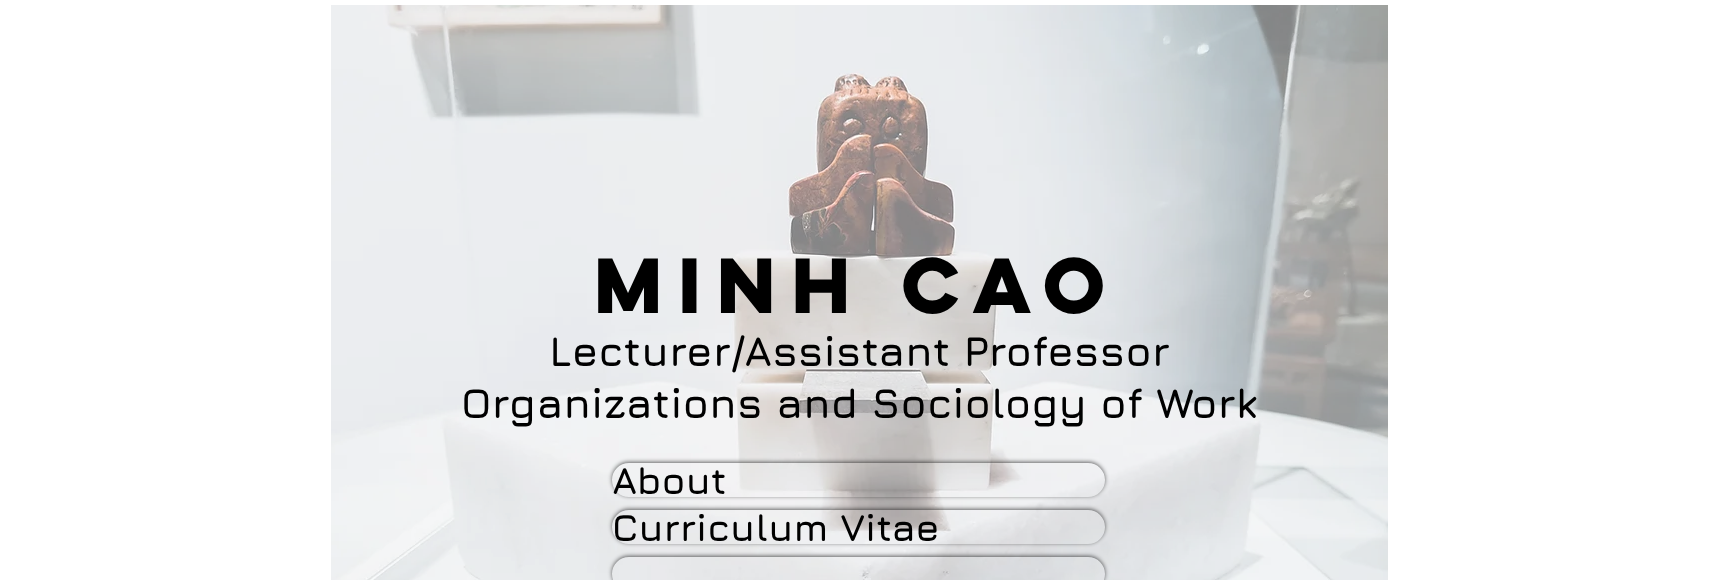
<!DOCTYPE html>
<meta charset="utf-8">
<style>body { margin: 0 } canvas { display: block }</style>
<canvas id="canvas" width="1717" height="580"></canvas>
<img id="img1" src="images/1.png" hidden>
<script>
window.onload = function () {
    const canvas = document.getElementById('canvas');
    const context = canvas.getContext('2d');
    context.miterLimit = 4;
    context.fontKerning = 'normal';

    context.fillStyle = 'rgb(255, 255, 255)';
    context.fillRect(0, 0, 1717, 580);
    context.drawImage(document.getElementById('img1'), 331, 5, 1057, 575);
    context.save();
    context.beginPath();
    context.moveTo(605, 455);
    context.lineTo(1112, 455);
    context.lineTo(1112, 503);
    context.lineTo(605, 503);
    context.closePath();
    context.moveTo(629, 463);
    context.lineTo(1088, 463);
    context.bezierCurveTo(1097.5, 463, 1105, 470.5, 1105, 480);
    context.bezierCurveTo(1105, 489.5, 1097.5, 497, 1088, 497);
    context.lineTo(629, 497);
    context.bezierCurveTo(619.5, 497, 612, 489.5, 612, 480);
    context.bezierCurveTo(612, 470.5, 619.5, 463, 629, 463);
    context.closePath();
    context.clip('evenodd');
    context.fillStyle = 'rgba(0, 0, 0, 0.6)';
    context.filter = 'blur(2px)';
    context.beginPath();
    context.roundRect(612, 462, 493, 34, 17);
    context.fill();
    context.filter = 'none';
    context.restore();
    context.save();
    context.beginPath();
    context.moveTo(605, 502);
    context.lineTo(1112, 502);
    context.lineTo(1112, 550);
    context.lineTo(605, 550);
    context.closePath();
    context.moveTo(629, 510);
    context.lineTo(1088, 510);
    context.bezierCurveTo(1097.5, 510, 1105, 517.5, 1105, 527);
    context.bezierCurveTo(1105, 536.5, 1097.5, 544, 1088, 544);
    context.lineTo(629, 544);
    context.bezierCurveTo(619.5, 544, 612, 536.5, 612, 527);
    context.bezierCurveTo(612, 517.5, 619.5, 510, 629, 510);
    context.closePath();
    context.clip('evenodd');
    context.fillStyle = 'rgba(0, 0, 0, 0.6)';
    context.filter = 'blur(2px)';
    context.beginPath();
    context.roundRect(612, 509, 493, 34, 17);
    context.fill();
    context.filter = 'none';
    context.restore();
    context.save();
    context.beginPath();
    context.moveTo(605, 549);
    context.lineTo(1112, 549);
    context.lineTo(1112, 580);
    context.lineTo(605, 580);
    context.closePath();
    context.moveTo(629, 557);
    context.lineTo(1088, 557);
    context.bezierCurveTo(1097.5, 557, 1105, 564.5, 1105, 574);
    context.bezierCurveTo(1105, 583.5, 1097.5, 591, 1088, 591);
    context.lineTo(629, 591);
    context.bezierCurveTo(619.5, 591, 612, 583.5, 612, 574);
    context.bezierCurveTo(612, 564.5, 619.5, 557, 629, 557);
    context.closePath();
    context.clip('evenodd');
    context.fillStyle = 'rgba(0, 0, 0, 0.6)';
    context.filter = 'blur(2px)';
    context.beginPath();
    context.roundRect(612, 556, 493, 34, 17);
    context.fill();
    context.filter = 'none';
    context.restore();
    context.font = 'bold 70px "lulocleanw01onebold"';
    context.fillStyle = 'rgb(0, 0, 0)';
    context.fillText('MINH CAO', 594, 313);
    context.font = 'bold 42px Jura';
    context.fillText('Lecturer/Assistant Professor', 549, 366);
    context.fillText('Organizations and Sociology of Work', 461, 418);
    context.font = 'bold 38px Jura';
    context.fillText('About', 612, 494);
    context.fillText('Curriculum Vitae', 612, 541);
};
</script>
